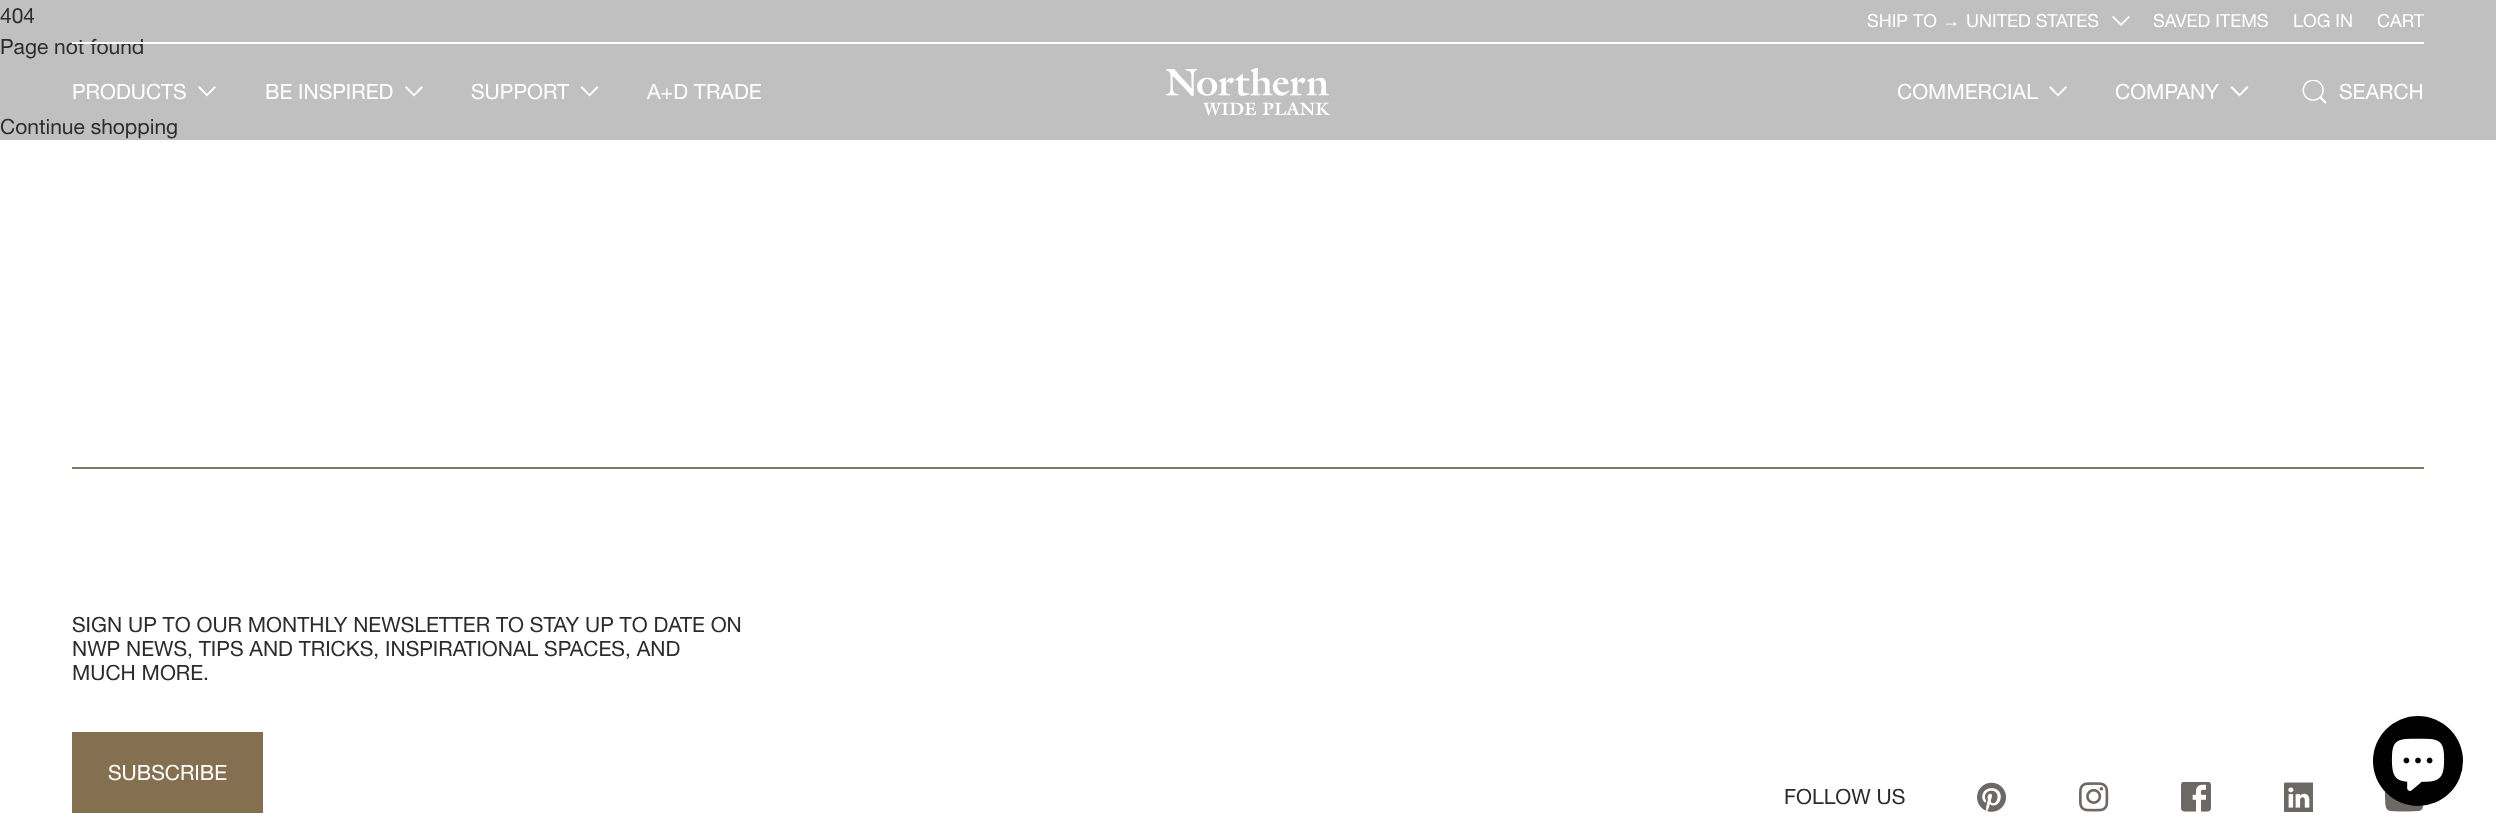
<!DOCTYPE html>
<meta charset="utf-8">
<style>body { margin: 0 } canvas { display: block }</style>
<canvas id="canvas" width="2496" height="836"></canvas>
<img id="img1" src="images/1.png" hidden>
<img id="img2" src="images/2.png" hidden>
<img id="img3" src="images/3.png" hidden>
<img id="img4" src="images/4.png" hidden>
<img id="img5" src="images/5.png" hidden>
<img id="img6" src="images/6.png" hidden>
<img id="img7" src="images/7.png" hidden>
<img id="img8" src="images/8.png" hidden>
<script>
window.onload = function () {
    const canvas = document.getElementById('canvas');
    const context = canvas.getContext('2d');
    context.miterLimit = 4;
    context.fontKerning = 'normal';

    context.fillStyle = 'rgb(255, 255, 255)';
    context.fillRect(0, 0, 2496, 836);
    context.fillStyle = 'rgb(192, 192, 192)';
    context.fillRect(0, 0, 2496, 140);
    context.fillStyle = 'rgb(255, 255, 255)';
    context.beginPath();
    context.moveTo(2121, 23.5);
    context.lineTo(2128.5, 16);
    context.lineTo(2130, 17);
    context.lineTo(2121, 26);
    context.lineTo(2112, 17);
    context.lineTo(2113.5, 16);
    context.closePath();
    context.fill('evenodd');
    context.beginPath();
    context.moveTo(207, 94);
    context.lineTo(214.5, 86);
    context.lineTo(216, 87.5);
    context.lineTo(207, 96.5);
    context.lineTo(198, 87.5);
    context.lineTo(199.5, 86);
    context.closePath();
    context.fill('evenodd');
    context.beginPath();
    context.moveTo(414, 94);
    context.lineTo(421.5, 86);
    context.lineTo(423, 87.5);
    context.lineTo(414, 96.5);
    context.lineTo(405, 87.5);
    context.lineTo(406.5, 86);
    context.closePath();
    context.fill('evenodd');
    context.beginPath();
    context.moveTo(589.5, 94);
    context.lineTo(597, 86);
    context.lineTo(598.5, 87.5);
    context.lineTo(589.5, 96.5);
    context.lineTo(580.5, 87.5);
    context.lineTo(582, 86);
    context.closePath();
    context.fill('evenodd');
    context.drawImage(document.getElementById('img1'), 1166, 68, 164, 48);
    context.beginPath();
    context.moveTo(2058, 94);
    context.lineTo(2065.5, 86);
    context.lineTo(2067, 87.5);
    context.lineTo(2058, 96.5);
    context.lineTo(2049, 87.5);
    context.lineTo(2050.5, 86);
    context.closePath();
    context.fill('evenodd');
    context.beginPath();
    context.moveTo(2239.5, 94);
    context.lineTo(2247, 86);
    context.lineTo(2248.5, 87.5);
    context.lineTo(2239.5, 96.5);
    context.lineTo(2230.5, 87.5);
    context.lineTo(2232, 86);
    context.closePath();
    context.fill('evenodd');
    context.drawImage(document.getElementById('img2'), 2302, 80, 25, 24);
    context.fillStyle = 'rgb(128, 119, 103)';
    context.fillRect(72, 467, 2352, 2);
    context.fillStyle = 'rgb(133, 111, 81)';
    context.fillRect(72, 732, 191, 81);
    context.drawImage(document.getElementById('img3'), 1977, 782, 30, 30);
    context.drawImage(document.getElementById('img4'), 2079, 782, 30, 30);
    context.drawImage(document.getElementById('img5'), 2181, 782, 30, 30);
    context.drawImage(document.getElementById('img6'), 2284, 782, 29, 30);
    context.drawImage(document.getElementById('img7'), 2385, 791, 39, 21);
    context.fillStyle = 'rgb(1, 1, 1)';
    context.beginPath();
    context.arc(2418, 761, 45, 0, 2 * Math.PI);
    context.fill();
    context.drawImage(document.getElementById('img8'), 2391, 738, 54, 53);
    context.font = '21px Helvetica Neue';
    context.fillStyle = 'rgb(44, 44, 44)';
    context.fillText('404', 0, 23);
    context.fillText('Page not found', 0, 54);
    context.fillText('Continue shopping', 0, 134);
    context.font = '18px Helvetica Neue';
    context.fillStyle = 'rgb(255, 255, 255)';
    context.fillText('SHIP TO', 1867, 27);
    context.font = '18px Liberation Sans';
    context.fillText('→', 1942, 27);
    context.font = '18px Helvetica Neue';
    context.fillText('UNITED STATES', 1966, 27);
    context.fillText('SAVED ITEMS', 2153, 27);
    context.fillText('LOG IN', 2293, 27);
    context.fillText('CART', 2377, 27);
    context.fillRect(72, 42, 2352, 2);
    context.font = '21px Helvetica Neue';
    context.fillText('PRODUCTS', 72, 99);
    context.fillText('BE INSPIRED', 265, 99);
    context.fillText('SUPPORT', 471, 99);
    context.fillText('A+D TRADE', 647, 99);
    context.fillText('COMMERCIAL', 1897, 99);
    context.fillText('COMPANY', 2115, 99);
    context.fillText('SEARCH', 2339, 99);
    context.fillStyle = 'rgb(44, 44, 44)';
    context.fillText('SIGN UP TO OUR MONTHLY NEWSLETTER TO STAY UP TO DATE ON', 72, 632);
    context.fillText('NWP NEWS, TIPS AND TRICKS, INSPIRATIONAL SPACES, AND', 72, 656);
    context.fillText('MUCH MORE.', 72, 680);
    context.fillStyle = 'rgb(255, 255, 255)';
    context.fillText('SUBSCRIBE', 108, 780);
    context.fillStyle = 'rgb(44, 44, 44)';
    context.fillText('FOLLOW US', 1784, 804);
};
</script>
